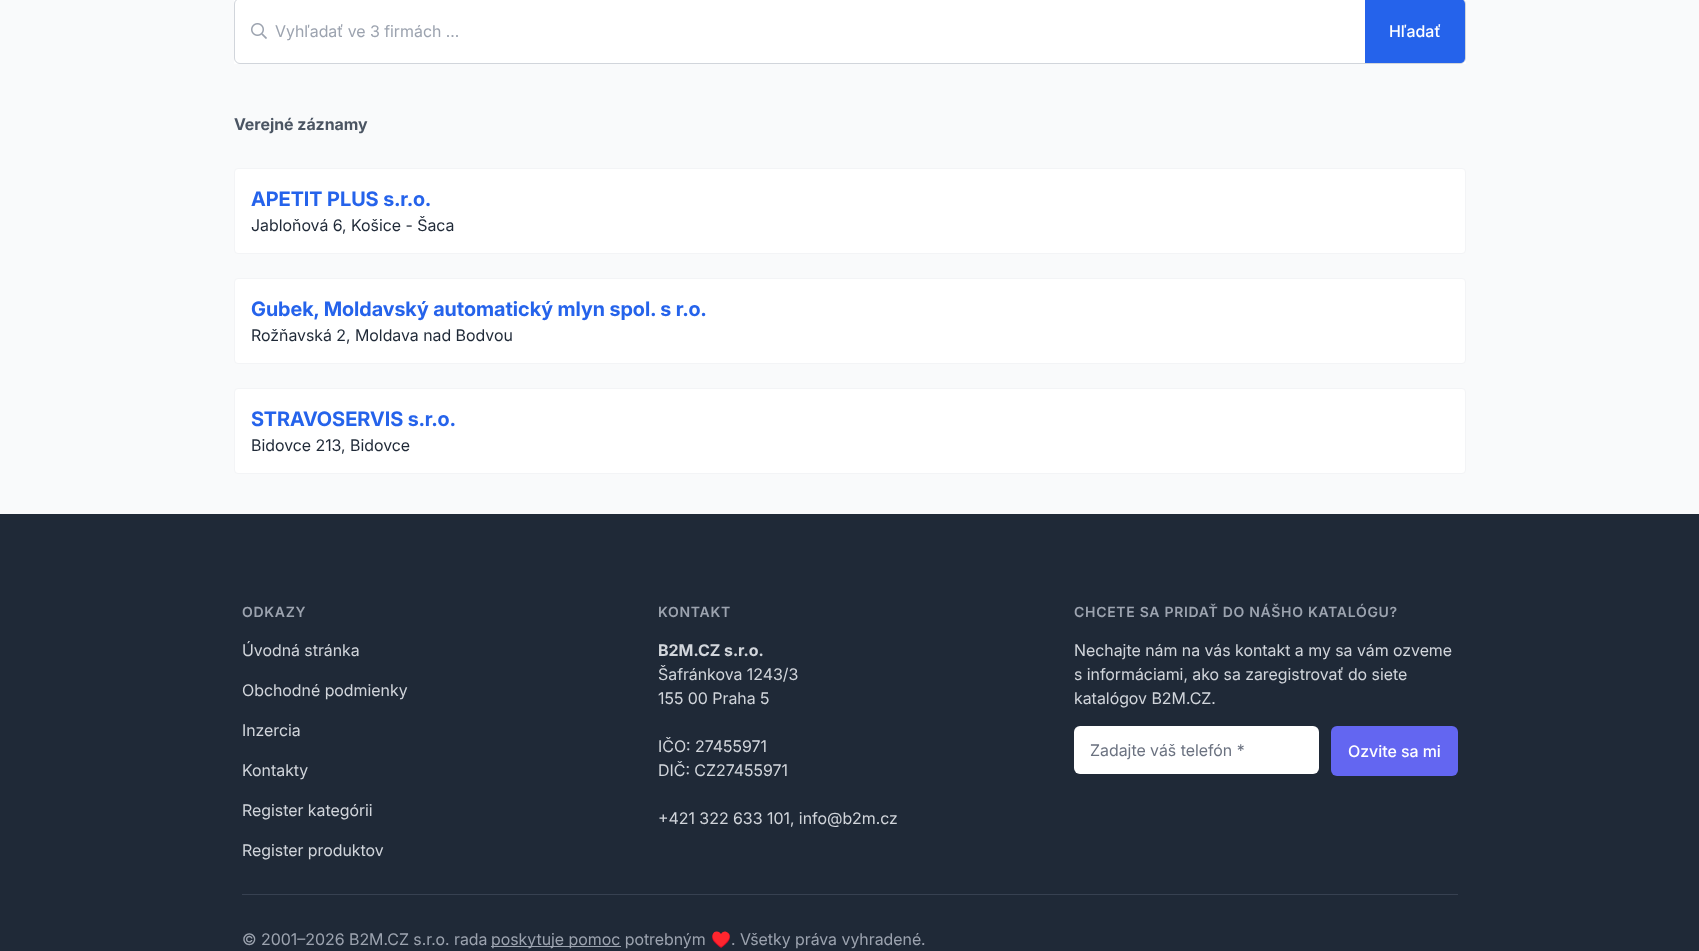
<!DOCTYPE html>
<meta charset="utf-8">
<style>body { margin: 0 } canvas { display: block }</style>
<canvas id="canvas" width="1699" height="951"></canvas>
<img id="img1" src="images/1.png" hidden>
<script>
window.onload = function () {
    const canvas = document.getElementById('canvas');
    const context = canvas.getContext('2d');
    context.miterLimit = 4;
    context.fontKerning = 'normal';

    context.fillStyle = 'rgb(31, 41, 55)';
    context.fillRect(0, 0, 1699, 951);
    context.fillStyle = 'rgb(249, 250, 251)';
    context.fillRect(0, 0, 1699, 514);
    context.fillStyle = 'rgb(255, 255, 255)';
    context.fillRect(234, 0, 1232, 64);
    context.beginPath();
    context.roundRect(234.5, -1.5, 1231, 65, 5.5);
    context.strokeStyle = 'rgb(209, 213, 219)';
    context.stroke();
    context.drawImage(document.getElementById('img1'), 251, 23, 16, 16);
    context.fillStyle = 'rgb(37, 99, 235)';
    context.beginPath();
    context.moveTo(1365, -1);
    context.lineTo(1460, -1);
    context.bezierCurveTo(1463, -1, 1465, 1, 1465, 4);
    context.lineTo(1465, 58);
    context.bezierCurveTo(1465, 61, 1463, 63, 1460, 63);
    context.lineTo(1365, 63);
    context.closePath();
    context.fill();
    context.fillStyle = 'rgb(255, 255, 255)';
    context.beginPath();
    context.roundRect(234.5, 168.5, 1231, 85, 3.5);
    context.fill();
    context.strokeStyle = 'rgb(243, 244, 246)';
    context.stroke();
    context.beginPath();
    context.roundRect(234.5, 278.5, 1231, 85, 3.5);
    context.fill();
    context.stroke();
    context.beginPath();
    context.roundRect(234.5, 388.5, 1231, 85, 3.5);
    context.fill();
    context.stroke();
    context.beginPath();
    context.roundRect(1074, 726, 245, 48, 6);
    context.fill();
    context.fillStyle = 'rgb(99, 102, 241)';
    context.beginPath();
    context.roundRect(1331, 726, 127, 50, 6);
    context.fill();
    context.fillStyle = 'rgb(55, 65, 81)';
    context.fillRect(242, 894, 1216, 1);
    context.fillStyle = 'rgb(156, 163, 175)';
    context.fillRect(491, 946, 130, 1);
    context.font = '16px Inter';
    context.fillText('Vyhľadať ve 3 firmách ...', 275, 37);
    context.font = '500 16px Inter';
    context.fillStyle = 'rgb(255, 255, 255)';
    context.fillText('Hľadať', 1389, 37);
    context.font = 'bold 16px Inter';
    context.fillStyle = 'rgb(75, 85, 99)';
    context.fillText('Verejné záznamy', 234, 130);
    context.font = 'bold 20px "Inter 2"';
    context.fillStyle = 'rgb(37, 99, 235)';
    context.fillText('APETIT PLUS s.r.o.', 251, 206);
    context.font = '16px Inter';
    context.fillStyle = 'rgb(31, 41, 55)';
    context.fillText('Jabloňová 6, Košice - Šaca', 251, 231);
    context.font = 'bold 20px "Inter 2"';
    context.fillStyle = 'rgb(37, 99, 235)';
    context.fillText('Gubek, Moldavský automatický mlyn spol. s r.o.', 251, 316);
    context.font = '16px Inter';
    context.fillStyle = 'rgb(31, 41, 55)';
    context.fillText('Rožňavská 2, Moldava nad Bodvou', 251, 341);
    context.font = 'bold 20px "Inter 2"';
    context.fillStyle = 'rgb(37, 99, 235)';
    context.fillText('STRAVOSERVIS s.r.o.', 251, 426);
    context.font = '16px Inter';
    context.fillStyle = 'rgb(31, 41, 55)';
    context.fillText('Bidovce 213, Bidovce', 251, 451);
    context.letterSpacing = '0.7px';
    context.font = '600 14px Inter';
    context.fillStyle = 'rgb(156, 163, 175)';
    context.fillText('ODKAZY', 242, 617);
    context.letterSpacing = '0px';
    context.font = '16px Inter';
    context.fillStyle = 'rgb(209, 213, 219)';
    context.fillText('Úvodná stránka', 242, 656);
    context.fillText('Obchodné podmienky', 242, 696);
    context.fillText('Inzercia', 242, 736);
    context.fillText('Kontakty', 242, 776);
    context.fillText('Register kategórii', 242, 816);
    context.fillText('Register produktov', 242, 856);
    context.letterSpacing = '0.7px';
    context.font = '600 14px Inter';
    context.fillStyle = 'rgb(156, 163, 175)';
    context.fillText('KONTAKT', 658, 617);
    context.letterSpacing = '0px';
    context.font = 'bold 16px Inter';
    context.fillStyle = 'rgb(209, 213, 219)';
    context.fillText('B2M.CZ s.r.o.', 658, 656);
    context.font = '16px Inter';
    context.fillText('Šafránkova 1243/3', 658, 680);
    context.fillText('155 00 Praha 5', 658, 704);
    context.fillText('IČO: 27455971', 658, 752);
    context.fillText('DIČ: CZ27455971', 658, 776);
    context.fillText('+421 322 633 101, info@b2m.cz', 658, 824);
    context.letterSpacing = '0.7px';
    context.font = '600 14px Inter';
    context.fillStyle = 'rgb(156, 163, 175)';
    context.fillText('CHCETE SA PRIDAŤ DO NÁŠHO KATALÓGU?', 1074, 617);
    context.letterSpacing = '0px';
    context.font = '16px Inter';
    context.fillStyle = 'rgb(209, 213, 219)';
    context.fillText('Nechajte nám na vás kontakt a my sa vám ozveme', 1074, 656);
    context.fillText('s informáciami, ako sa zaregistrovať do siete', 1074, 680);
    context.fillText('katalógov B2M.CZ.', 1074, 704);
    context.fillStyle = 'rgb(107, 114, 128)';
    context.fillText('Zadajte váš telefón *', 1090, 756);
    context.font = '500 16px Inter';
    context.fillStyle = 'rgb(255, 255, 255)';
    context.fillText('Ozvite sa mi', 1348, 757);
    context.font = '16px Inter';
    context.fillStyle = 'rgb(156, 163, 175)';
    context.fillText('© 2001–2026 B2M.CZ s.r.o. rada', 242, 945);
    context.fillText('poskytuje pomoc potrebným', 491, 945);
    context.font = '16px Noto Color Emoji';
    context.fillText('♥️', 711, 945);
    context.font = '16px Inter';
    context.fillText('. Všetky práva vyhradené.', 731, 945);
};
</script>
